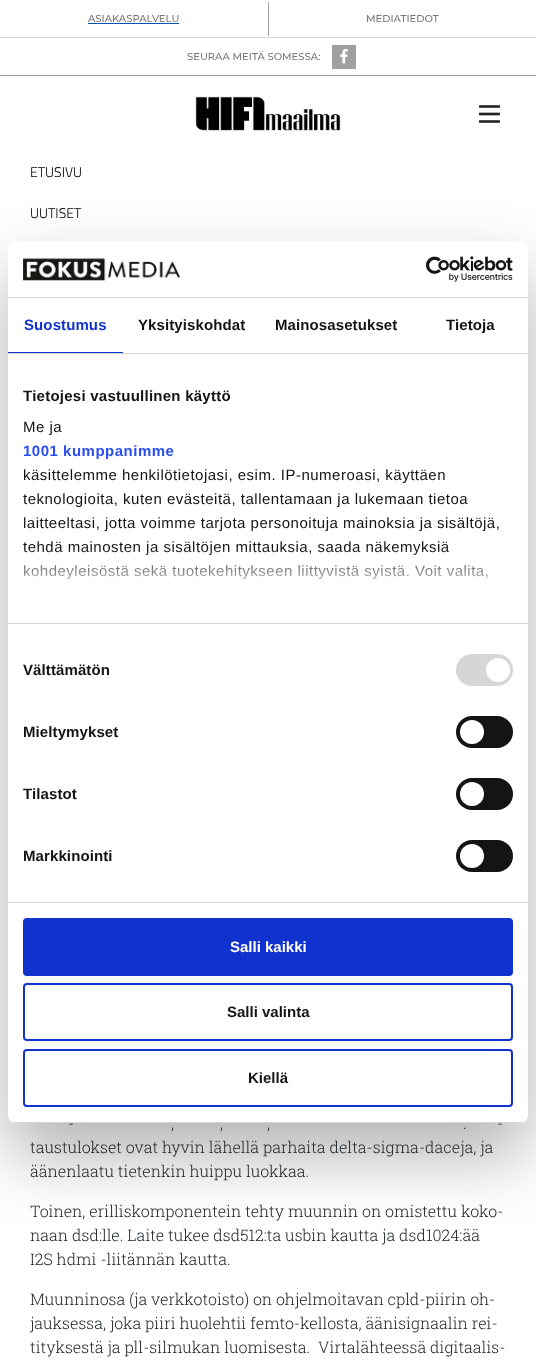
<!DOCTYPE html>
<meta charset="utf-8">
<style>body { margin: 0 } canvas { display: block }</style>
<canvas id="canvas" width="536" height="1364"></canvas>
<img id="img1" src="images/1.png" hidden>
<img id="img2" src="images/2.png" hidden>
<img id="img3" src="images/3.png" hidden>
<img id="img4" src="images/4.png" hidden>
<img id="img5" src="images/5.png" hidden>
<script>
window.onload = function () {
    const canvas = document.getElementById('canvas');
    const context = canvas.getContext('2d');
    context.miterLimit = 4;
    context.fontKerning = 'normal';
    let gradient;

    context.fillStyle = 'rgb(255, 255, 255)';
    context.fillRect(0, 0, 536, 1364);
    context.fillStyle = 'rgb(160, 160, 160)';
    context.fillRect(0, 75, 536, 1);
    context.fillStyle = 'rgb(0, 86, 179)';
    context.fillRect(88, 23, 91, 1);
    context.fillStyle = 'rgb(160, 160, 160)';
    context.fillRect(268, 2, 1, 34);
    context.fillStyle = 'rgb(218, 218, 218)';
    context.fillRect(0, 37, 536, 1);
    context.fillStyle = 'rgb(160, 160, 160)';
    context.fillRect(332, 45, 24, 24);
    context.drawImage(document.getElementById('img1'), 340, 49, 8, 15);
    context.drawImage(document.getElementById('img2'), 195, 96, 146, 35);
    context.drawImage(document.getElementById('img3'), 479, 105, 21, 18);
    context.fillStyle = 'rgba(0, 0, 0, 0.3)';
    context.filter = 'blur(34px)';
    context.beginPath();
    context.roundRect(8, 273, 520, 882, 8);
    context.fill();
    context.filter = 'none';
    context.fillStyle = 'rgb(255, 255, 255)';
    context.beginPath();
    context.roundRect(8, 241, 520, 882, 8);
    context.fill();
    context.fillStyle = 'rgb(214, 214, 214)';
    context.fillRect(8, 297, 520, 1);
    context.drawImage(document.getElementById('img4'), 23, 258, 157, 23);
    context.drawImage(document.getElementById('img5'), 426, 256, 87, 26);
    context.fillRect(8, 353, 520, 1);
    context.fillStyle = 'rgb(16, 50, 207)';
    context.fillRect(8, 352, 115, 1);
    context.fillStyle = 'rgb(214, 214, 214)';
    context.fillRect(8, 623, 520, 1);
    context.fillRect(8, 902, 520, 1);
    context.beginPath();
    context.roundRect(456, 654, 57, 32, 16);
    context.fill();
    context.fillStyle = 'rgb(255, 255, 255)';
    context.beginPath();
    context.arc(498, 670, 12, 0, 2 * Math.PI);
    context.fill();
    context.fillStyle = 'rgb(20, 20, 20)';
    context.beginPath();
    context.roundRect(456, 716, 57, 32, 16);
    context.fill();
    context.fillStyle = 'rgb(255, 255, 255)';
    context.beginPath();
    context.arc(472, 732, 12, 0, 2 * Math.PI);
    context.fill();
    context.fillStyle = 'rgb(20, 20, 20)';
    context.beginPath();
    context.roundRect(456, 778, 57, 32, 16);
    context.fill();
    context.fillStyle = 'rgb(255, 255, 255)';
    context.beginPath();
    context.arc(472, 794, 12, 0, 2 * Math.PI);
    context.fill();
    context.fillStyle = 'rgb(20, 20, 20)';
    context.beginPath();
    context.roundRect(456, 840, 57, 32, 16);
    context.fill();
    context.fillStyle = 'rgb(255, 255, 255)';
    context.beginPath();
    context.arc(472, 856, 12, 0, 2 * Math.PI);
    context.fill();
    context.save();
    context.beginPath();
    context.roundRect(8, 241, 520, 882, 8);
    context.clip();
    context.fillStyle = 'rgb(214, 214, 214)';
    context.fillRect(8, 1122, 520, 1);
    context.restore();
    context.fillStyle = 'rgb(16, 50, 207)';
    context.beginPath();
    context.roundRect(24, 919, 488, 56, 3);
    context.fill();
    context.strokeStyle = 'rgb(16, 50, 207)';
    context.lineWidth = 2;
    context.stroke();
    context.beginPath();
    context.roundRect(24, 984, 488, 56, 3);
    context.stroke();
    context.beginPath();
    context.roundRect(24, 1050, 488, 56, 3);
    context.stroke();
    context.font = '500 10px Montserrat';
    context.fillStyle = 'rgb(120, 120, 120)';
    context.fillText('ASIAKASPALVELU', 88, 22);
    context.fillText('MEDIATIEDOT', 366, 22);
    context.fillText('SEURAA MEITÄ SOMESSA:', 187, 60);
    context.font = '300 14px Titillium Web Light';
    context.fillStyle = 'rgb(0, 0, 0)';
    context.fillText('ETUSIVU', 30, 177);
    context.fillText('UUTISET', 30, 218);
    context.font = '300 16px Roboto Slab';
    context.fillStyle = 'rgb(33, 37, 41)';
    context.fillText('-', 68, 1129);
    context.fillText('-', 497, 1129);
    context.fillText(',', 171, 1129);
    context.fillText(',', 220, 1129);
    context.fillText(',', 267, 1129);
    context.fillText('.', 463, 1129);
    context.fillText('taustulokset ovat hyvin lähellä parhaita delta-sigma-daceja, ja', 30, 1153);
    context.fillText('äänenlaatu tietenkin huippu luokkaa.', 30, 1177);
    context.fillText('Toinen, erilliskomponentein tehty muunnin on omistettu koko-', 30, 1217);
    context.fillText('naan dsd:lle. Laite tukee dsd512:ta usbin kautta ja dsd1024:ää', 30, 1241);
    context.fillText('I2S hdmi -liitännän kautta.', 30, 1265);
    context.fillText('Muunninosa (ja verkkotoisto) on ohjelmoitavan cpld-piirin oh-', 30, 1305);
    context.fillText('jauksessa, joka piiri huolehtii femto-kellosta, äänisignaalin rei-', 30, 1329);
    context.fillText('tityksestä ja pll-silmukan luomisesta.  Virtalähteessä digitaalis-', 30, 1353);
    context.letterSpacing = '0.1px';
    context.font = 'bold 15px Liberation Sans';
    context.fillStyle = 'rgb(16, 50, 207)';
    context.fillText('Suostumus', 24, 330);
    context.fillStyle = 'rgb(20, 20, 20)';
    context.fillText('Yksityiskohdat', 138, 330);
    context.fillText('Mainosasetukset', 275, 330);
    context.fillText('Tietoja', 446, 330);
    context.letterSpacing = '0.25px';
    context.fillText('Tietojesi vastuullinen käyttö', 23, 401);
    context.letterSpacing = '0.5px';
    context.font = '15px Liberation Sans';
    context.fillText('Me ja', 23, 432);
    context.font = 'bold 15px Liberation Sans';
    context.fillStyle = 'rgb(42, 78, 239)';
    context.fillText('1001 kumppanimme', 23, 456);
    context.font = '15px Liberation Sans';
    context.fillStyle = 'rgb(20, 20, 20)';
    context.fillText('käsittelemme henkilötietojasi, esim. IP-numeroasi, käyttäen', 23, 480);
    context.fillText('teknologioita, kuten evästeitä, tallentamaan ja lukemaan tietoa', 23, 504);
    context.fillText('laitteeltasi, jotta voimme tarjota personoituja mainoksia ja sisältöjä,', 23, 528);
    context.fillText('tehdä mainosten ja sisältöjen mittauksia, saada näkemyksiä', 23, 552);
    context.fillText('kohdeyleisöstä sekä tuotekehitykseen liittyvistä syistä. Voit valita,', 23, 576);
    gradient = context.createLinearGradient(262, 623, 262, 548);
    gradient.addColorStop(0, 'rgb(255, 255, 255)');
    gradient.addColorStop(0.5, 'rgba(255, 255, 255, 0.8)');
    gradient.addColorStop(1, 'rgba(255, 255, 255, 0)');
    context.fillStyle = gradient;
    context.fillRect(24, 549, 464, 31);
    context.letterSpacing = '0.1px';
    context.font = 'bold 15px Liberation Sans';
    context.fillStyle = 'rgb(20, 20, 20)';
    context.fillText('Välttämätön', 23, 675);
    context.fillText('Mieltymykset', 23, 737);
    context.fillText('Tilastot', 23, 799);
    context.fillText('Markkinointi', 23, 861);
    context.letterSpacing = '0px';
    context.fillStyle = 'rgb(255, 255, 255)';
    context.fillText('Salli kaikki', 230, 952);
    context.fillStyle = 'rgb(20, 20, 20)';
    context.fillText('Salli valinta', 227, 1017);
    context.fillText('Kiellä', 248, 1083);
};
</script>
